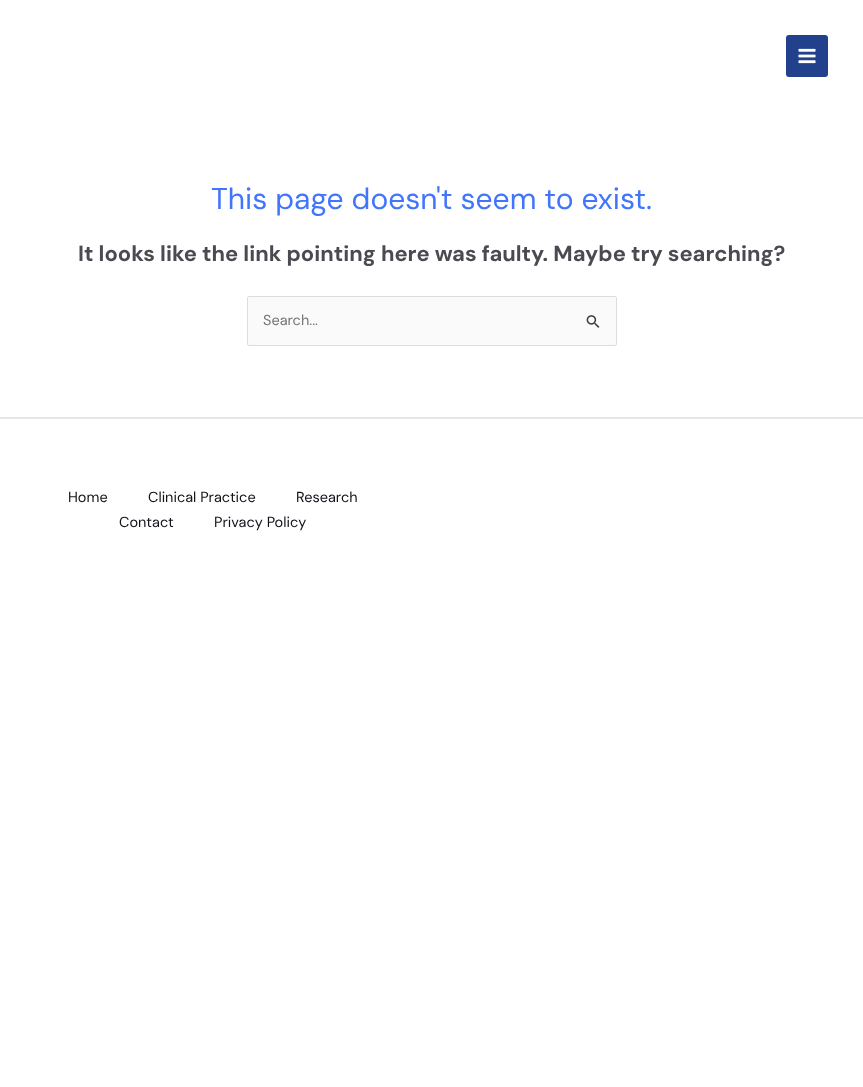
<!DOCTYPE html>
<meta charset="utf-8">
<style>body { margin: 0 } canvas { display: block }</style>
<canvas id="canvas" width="863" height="1087"></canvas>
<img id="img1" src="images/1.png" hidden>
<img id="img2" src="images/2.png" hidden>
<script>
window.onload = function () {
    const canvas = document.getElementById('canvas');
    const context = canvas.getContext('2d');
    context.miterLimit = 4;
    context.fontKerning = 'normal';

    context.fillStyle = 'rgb(255, 255, 255)';
    context.fillRect(0, 0, 863, 1087);
    context.fillStyle = 'rgb(33, 65, 141)';
    context.beginPath();
    context.roundRect(786, 35, 42, 42, 3);
    context.fill();
    context.drawImage(document.getElementById('img1'), 798, 48, 18, 16);
    context.fillStyle = 'rgb(250, 250, 250)';
    context.beginPath();
    context.roundRect(247.5, 296.5, 369, 49, 1.5);
    context.fill();
    context.strokeStyle = 'rgb(221, 221, 221)';
    context.stroke();
    context.drawImage(document.getElementById('img2'), 586, 315, 14, 13);
    context.fillStyle = 'rgb(230, 230, 230)';
    context.fillRect(0, 417, 863, 2);
    context.font = '30px DM Sans';
    context.fillStyle = 'rgb(65, 117, 252)';
    context.fillText('This page doesn\'t seem to exist.', 211, 209);
    context.font = 'bold 21.9px DM Sans';
    context.fillStyle = 'rgb(73, 75, 81)';
    context.fillText('It looks like the link pointing here was faulty. Maybe try searching?', 78, 261);
    context.font = '14.5px DM Sans';
    context.fillStyle = 'rgb(117, 117, 117)';
    context.fillText('Search...', 263, 325);
    context.fillStyle = 'rgb(16, 18, 24)';
    context.fillText('Home', 68, 502);
    context.fillText('Clinical Practice', 148, 502);
    context.fillText('Research', 296, 502);
    context.fillText('Contact', 119, 527);
    context.fillText('Privacy Policy', 214, 527);
};
</script>
